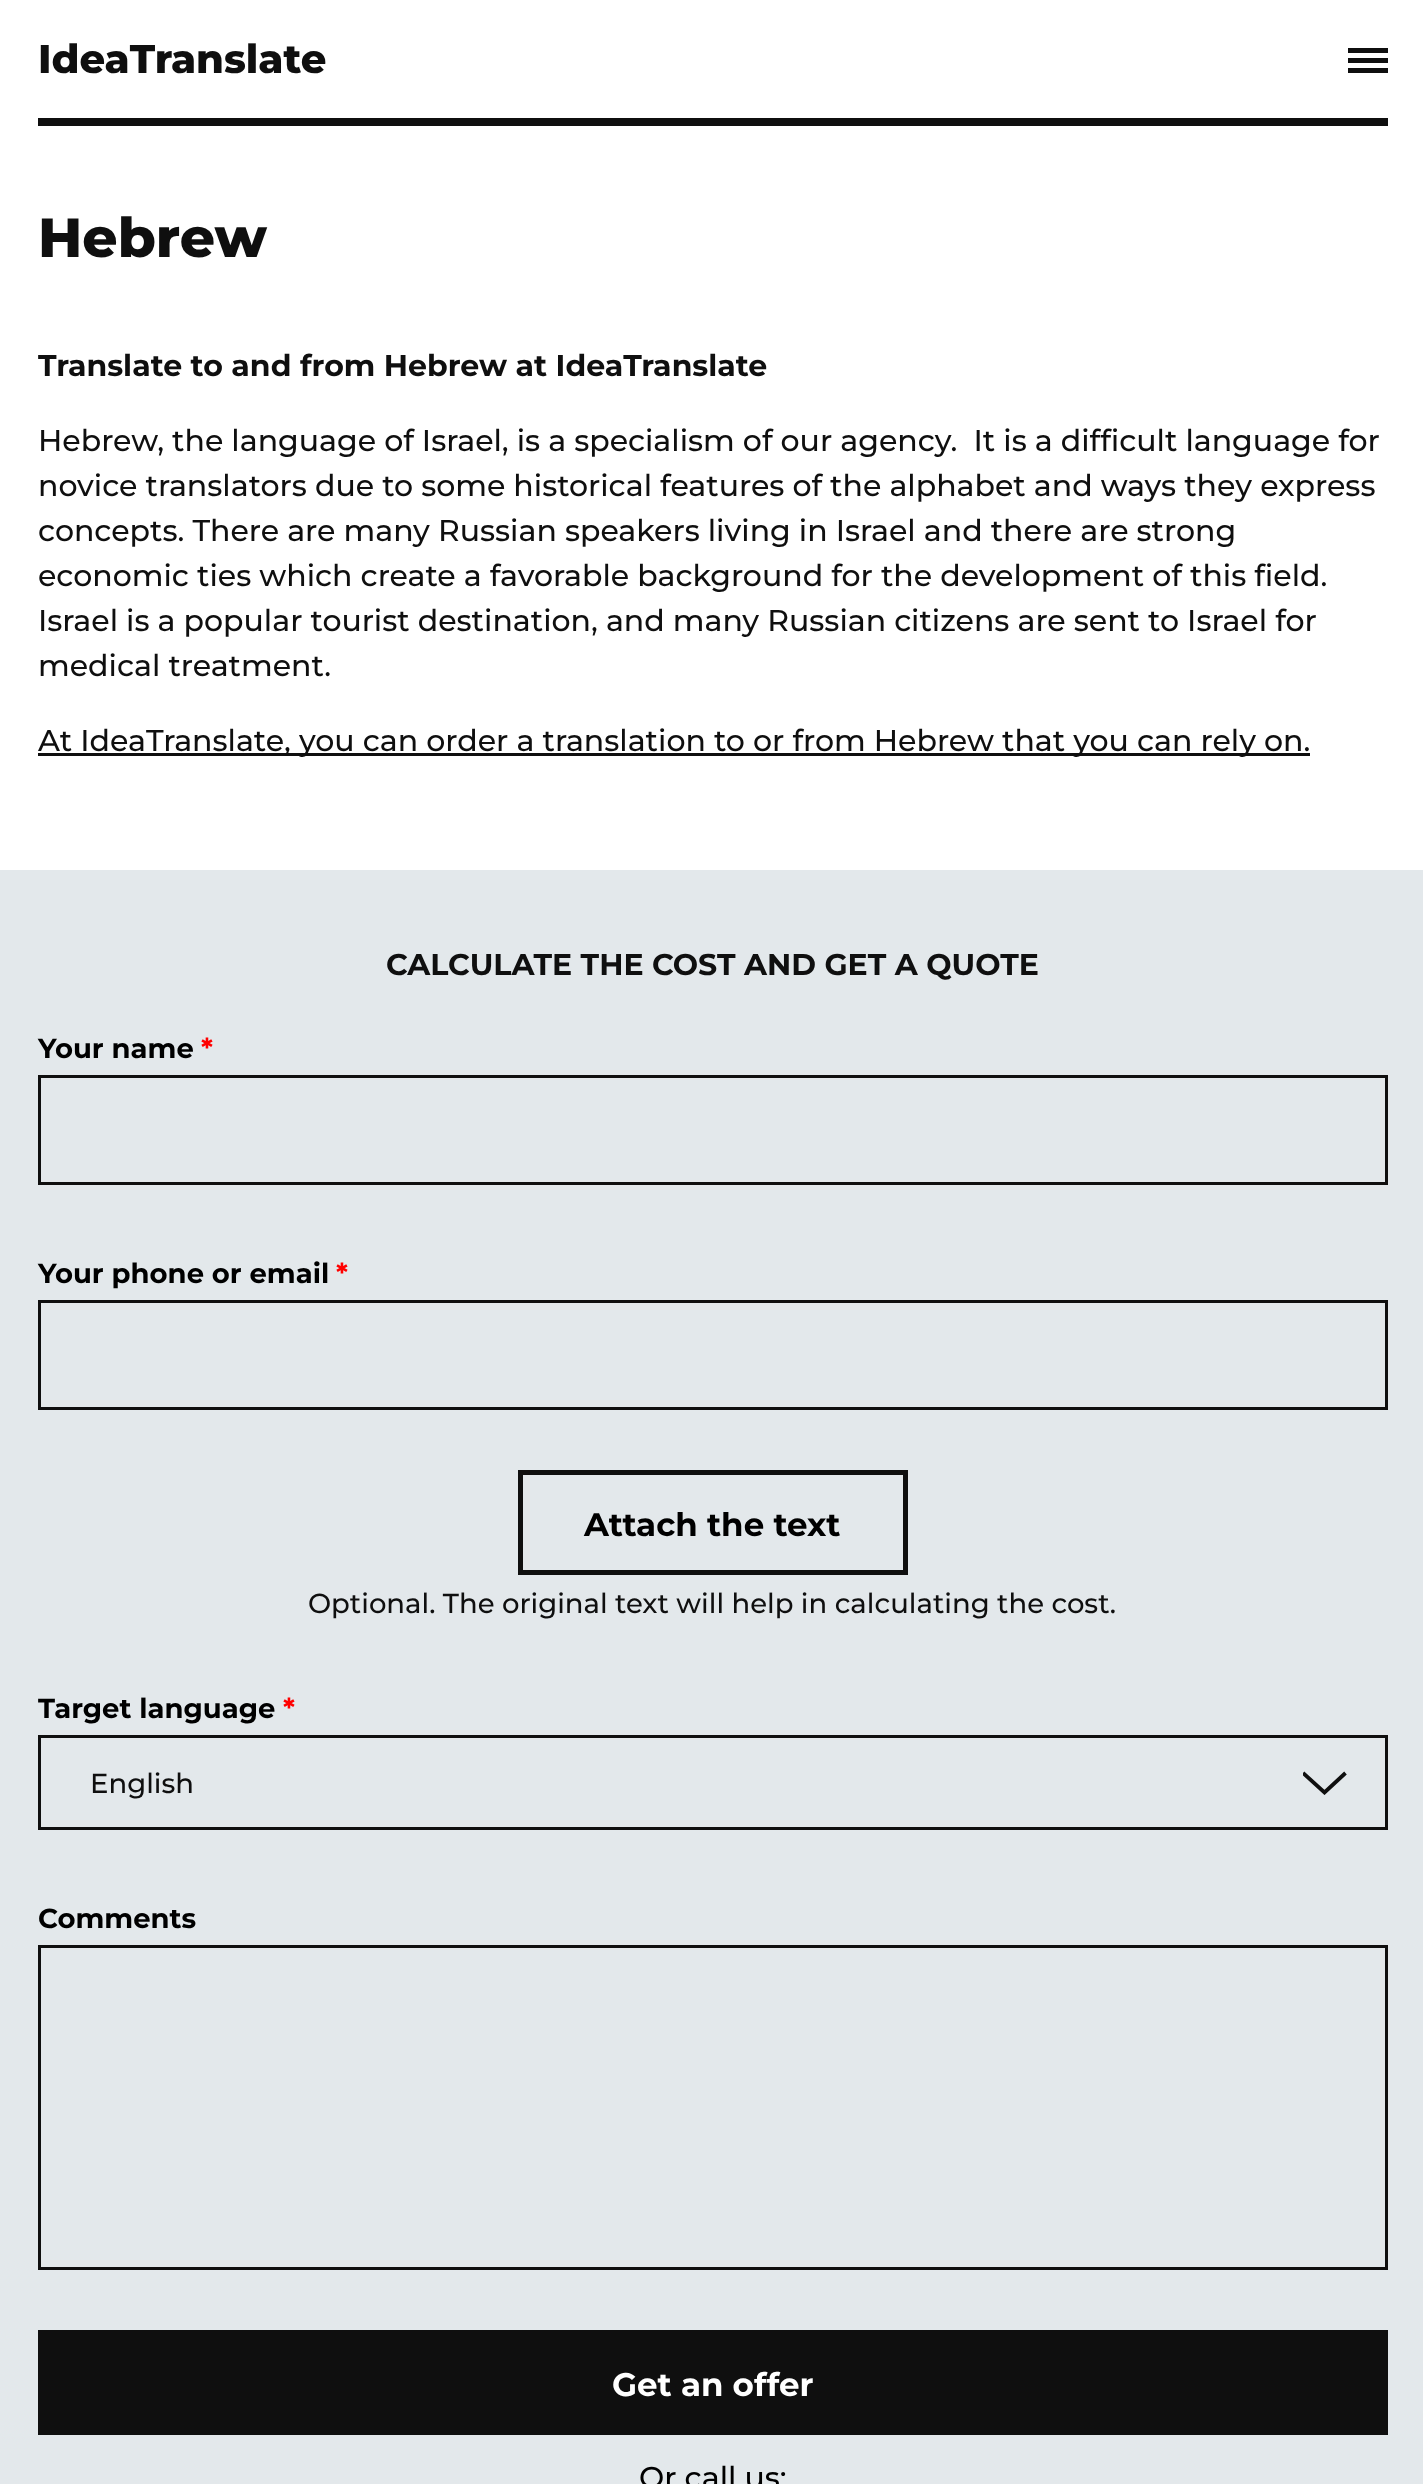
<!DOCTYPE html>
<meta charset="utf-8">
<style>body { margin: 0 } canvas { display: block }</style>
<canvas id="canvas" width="1423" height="2484"></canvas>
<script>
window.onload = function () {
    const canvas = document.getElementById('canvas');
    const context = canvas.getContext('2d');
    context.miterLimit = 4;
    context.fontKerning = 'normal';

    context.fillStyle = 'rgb(255, 255, 255)';
    context.fillRect(0, 0, 1423, 2484);
    context.fillStyle = 'rgb(15, 15, 15)';
    context.fillRect(38, 118, 1350, 8);
    context.fillRect(1348, 48, 40, 5);
    context.fillRect(1348, 58, 40, 5);
    context.fillRect(1348, 68, 40, 5);
    context.fillRect(38, 753, 1272, 3);
    context.fillStyle = 'rgb(227, 232, 235)';
    context.fillRect(0, 870, 1423, 1614);
    context.strokeStyle = 'rgb(15, 15, 15)';
    context.lineWidth = 3;
    context.strokeRect(39.5, 1076.5, 1347, 107);
    context.strokeRect(39.5, 1301.5, 1347, 107);
    context.lineWidth = 5;
    context.strokeRect(520.5, 1472.5, 385, 100);
    context.lineWidth = 3;
    context.strokeRect(39.5, 1736.5, 1347, 92);
    context.save();
    context.beginPath();
    context.rect(1303, 1770, 45, 25);
    context.clip();
    context.beginPath();
    context.moveTo(1303, 1773);
    context.lineTo(1324.5, 1792.5);
    context.lineTo(1345.5, 1773);
    context.lineWidth = 3.8;
    context.stroke();
    context.restore();
    context.strokeRect(39.5, 1946.5, 1347, 322);
    context.fillStyle = 'rgb(15, 15, 15)';
    context.fillRect(38, 2330, 1350, 105);
    context.font = '800 40px Montserrat';
    context.fillText('IdeaTranslate', 38, 73);
    context.font = '800 55px Montserrat';
    context.fillText('Hebrew', 38, 257);
    context.font = 'bold 30px Montserrat';
    context.fillText('Translate to and from Hebrew at IdeaTranslate', 38, 376);
    context.font = '500 30px Montserrat';
    context.fillText('Hebrew, the language of Israel, is a specialism of our agency.  It is a difficult language for', 38, 451);
    context.fillText('novice translators due to some historical features of the alphabet and ways they express', 38, 496);
    context.fillText('concepts. There are many Russian speakers living in Israel and there are strong', 38, 541);
    context.fillText('economic ties which create a favorable background for the development of this field.', 38, 586);
    context.fillText('Israel is a popular tourist destination, and many Russian citizens are sent to Israel for', 38, 631);
    context.fillText('medical treatment.', 38, 676);
    context.fillText('At IdeaTranslate, you can order a translation to or from Hebrew that you can rely on.', 38, 751);
    context.font = 'bold 30px Montserrat';
    context.fillText('CALCULATE THE COST AND GET A QUOTE', 386, 975);
    context.font = 'bold 27.5px Montserrat';
    context.fillStyle = 'rgb(0, 0, 0)';
    context.fillText('Your name', 38, 1058);
    context.fillStyle = 'rgb(255, 0, 0)';
    context.fillText('*', 201, 1058);
    context.fillStyle = 'rgb(0, 0, 0)';
    context.fillText('Your phone or email', 38, 1283);
    context.fillStyle = 'rgb(255, 0, 0)';
    context.fillText('*', 336, 1283);
    context.font = 'bold 32.5px Montserrat';
    context.fillStyle = 'rgb(0, 0, 0)';
    context.fillText('Attach the text', 584, 1536);
    context.font = '500 27.5px Montserrat';
    context.fillStyle = 'rgb(15, 15, 15)';
    context.fillText('Optional. The original text will help in calculating the cost.', 308, 1613);
    context.font = 'bold 27.5px Montserrat';
    context.fillStyle = 'rgb(0, 0, 0)';
    context.fillText('Target language', 38, 1718);
    context.fillStyle = 'rgb(255, 0, 0)';
    context.fillText('*', 283, 1718);
    context.font = '500 27.5px Montserrat';
    context.fillStyle = 'rgb(15, 15, 15)';
    context.fillText('English', 90, 1793);
    context.font = 'bold 27.5px Montserrat';
    context.fillStyle = 'rgb(0, 0, 0)';
    context.fillText('Comments', 38, 1928);
    context.font = 'bold 32.5px Montserrat';
    context.fillStyle = 'rgb(255, 255, 255)';
    context.fillText('Get an offer', 612, 2396);
    context.font = '500 30px Montserrat';
    context.fillStyle = 'rgb(0, 0, 0)';
    context.fillText('Or call us:', 639, 2488);
};
</script>
